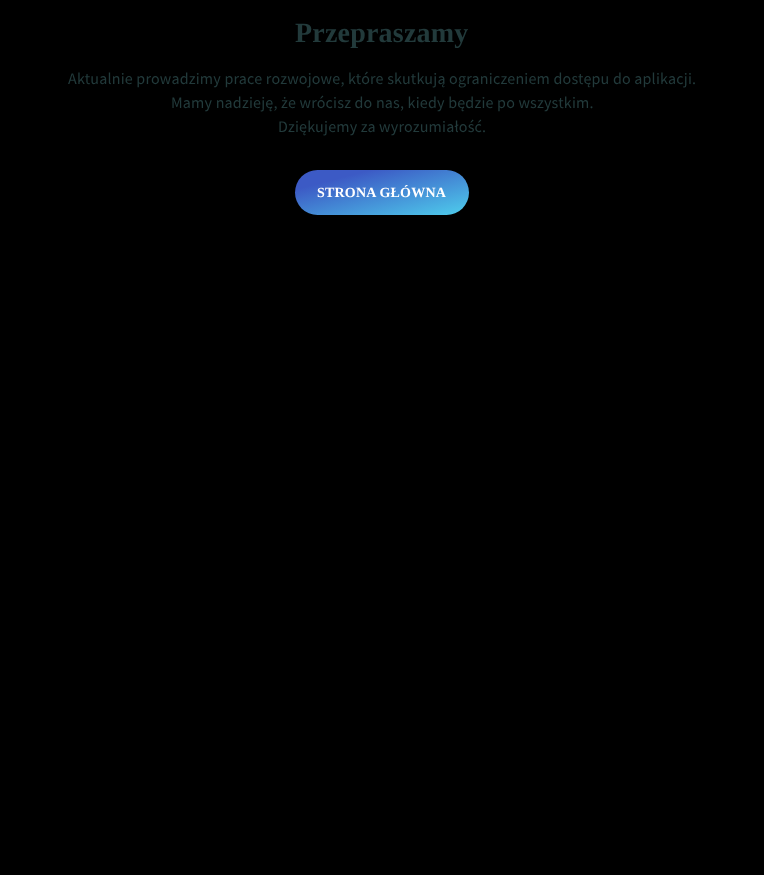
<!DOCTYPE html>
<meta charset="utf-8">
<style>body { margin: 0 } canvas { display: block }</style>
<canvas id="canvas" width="764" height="875"></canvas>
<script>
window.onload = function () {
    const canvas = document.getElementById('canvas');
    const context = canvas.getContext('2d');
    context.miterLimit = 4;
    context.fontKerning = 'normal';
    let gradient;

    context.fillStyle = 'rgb(0, 0, 0)';
    context.fillRect(0, 0, 764, 875);
    gradient = context.createLinearGradient(371, 150, 393, 235);
    gradient.addColorStop(0.22, 'rgb(60, 90, 197)');
    gradient.addColorStop(0.93, 'rgb(77, 196, 233)');
    context.fillStyle = gradient;
    context.beginPath();
    context.roundRect(295, 170, 174, 45, 22.5);
    context.fill();
    context.letterSpacing = '0.2px';
    context.font = 'bold 28px Liberation Serif';
    context.fillStyle = 'rgb(34, 58, 59)';
    context.fillText('Przepraszamy', 295, 42);
    context.font = '16px Source Sans Pro';
    context.fillText('Aktualnie prowadzimy prace rozwojowe, które skutkują ograniczeniem dostępu do aplikacji.', 68, 84);
    context.fillText('Mamy nadzieję, że wrócisz do nas, kiedy będzie po wszystkim.', 171, 108);
    context.fillText('Dziękujemy za wyrozumiałość.', 278, 132);
    context.font = 'bold 14px Liberation Serif';
    context.fillStyle = 'rgb(255, 255, 255)';
    context.fillText('STRONA GŁÓWNA', 317, 197);
};
</script>
